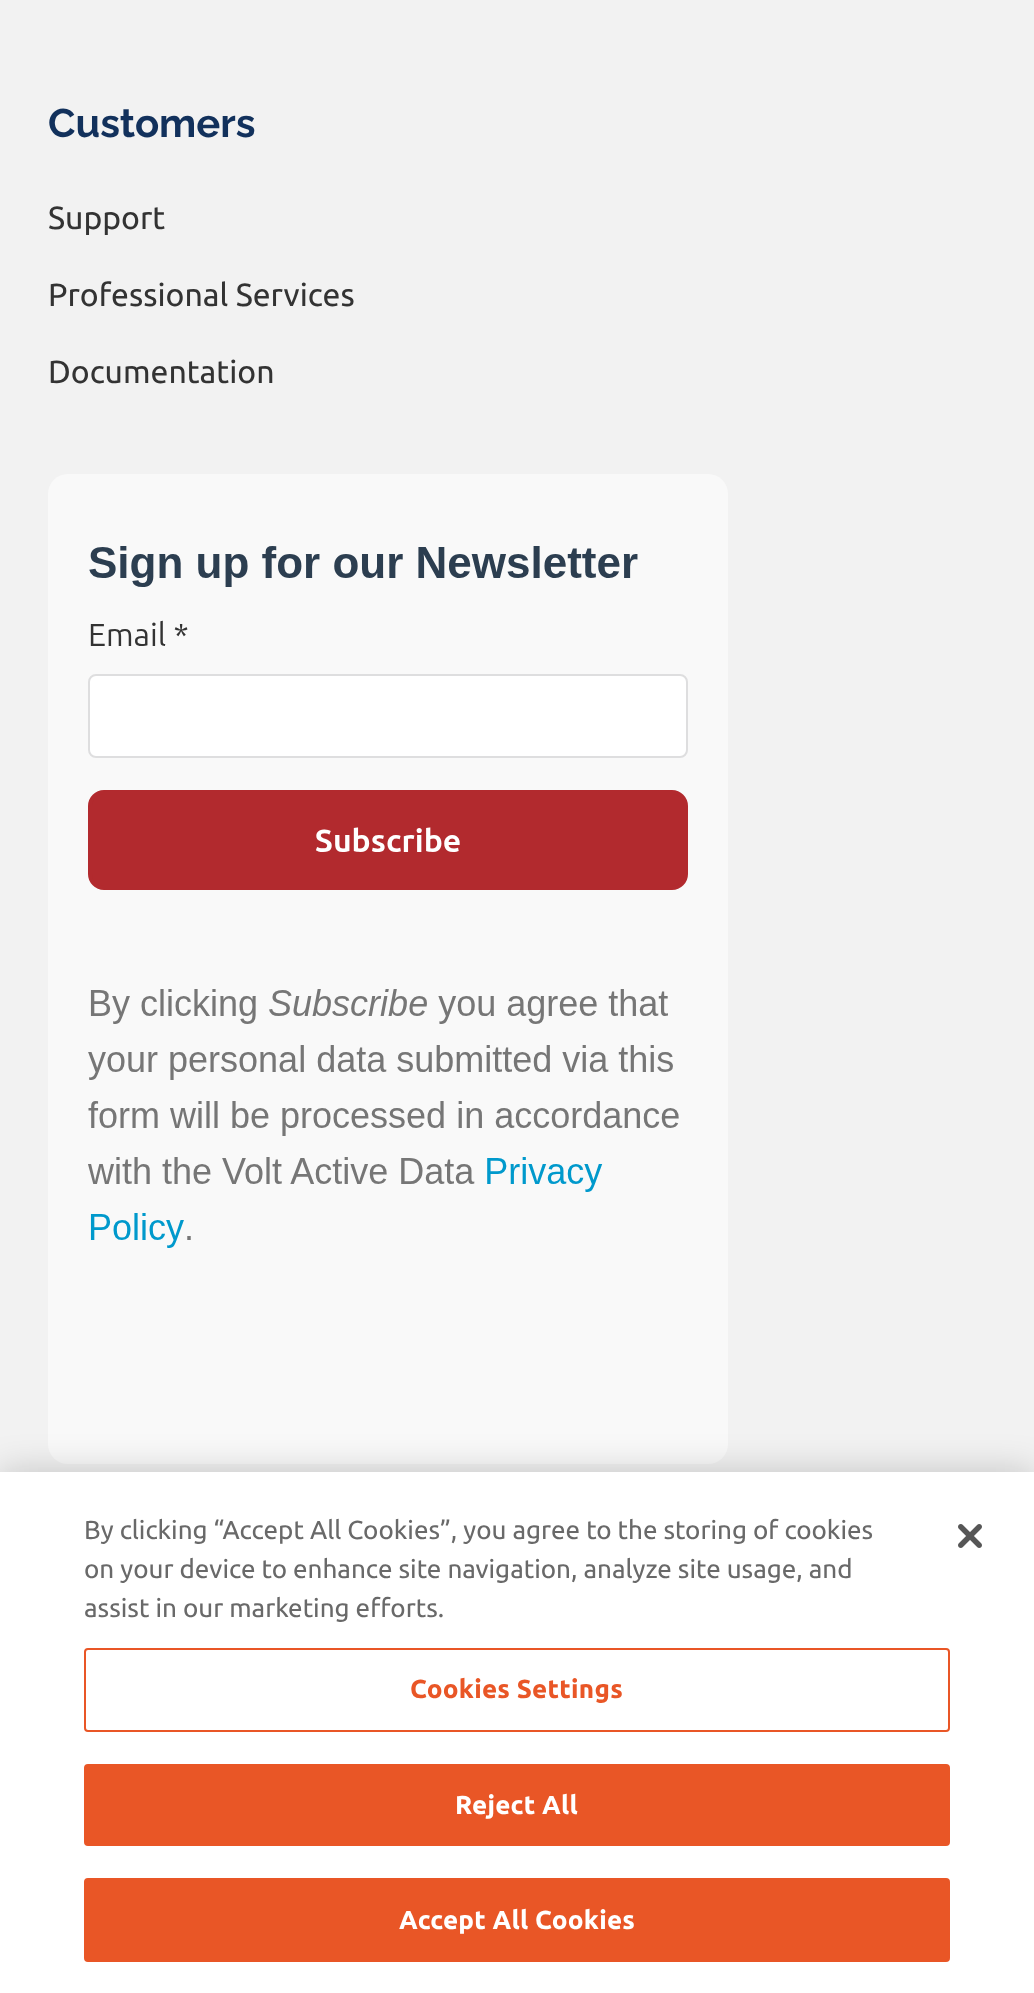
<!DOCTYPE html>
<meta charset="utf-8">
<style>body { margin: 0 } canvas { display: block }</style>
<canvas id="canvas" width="1034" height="1993"></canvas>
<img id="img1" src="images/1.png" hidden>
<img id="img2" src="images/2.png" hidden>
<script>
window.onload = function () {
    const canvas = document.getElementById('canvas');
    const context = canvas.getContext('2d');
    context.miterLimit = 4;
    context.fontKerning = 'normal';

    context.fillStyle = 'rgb(242, 242, 242)';
    context.fillRect(0, 0, 1034, 1993);
    context.fillStyle = 'rgb(249, 249, 249)';
    context.beginPath();
    context.roundRect(48, 474, 680, 990, 20);
    context.fill();
    context.drawImage(document.getElementById('img1'), 88, 546, 600, 702);
    context.fillStyle = 'rgba(0, 0, 0, 0.2)';
    context.filter = 'blur(18px)';
    context.beginPath();
    context.rect(0, 1472, 1034, 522);
    context.fill();
    context.filter = 'none';
    context.fillStyle = 'rgb(255, 255, 255)';
    context.fillRect(0, 1472, 1034, 521);
    context.beginPath();
    context.roundRect(85, 1649, 864, 82, 3);
    context.strokeStyle = 'rgb(233, 86, 38)';
    context.lineWidth = 2;
    context.stroke();
    context.fillStyle = 'rgb(233, 86, 38)';
    context.beginPath();
    context.roundRect(85, 1765, 864, 80, 3);
    context.fill();
    context.stroke();
    context.beginPath();
    context.roundRect(85, 1879, 864, 82, 3);
    context.fill();
    context.stroke();
    context.drawImage(document.getElementById('img2'), 958, 1524, 24, 24);
    context.font = 'bold 40px Raleway';
    context.fillStyle = 'rgb(18, 49, 92)';
    context.fillText('Customers', 48, 137);
    context.font = '32px Ubuntu';
    context.fillStyle = 'rgb(51, 51, 51)';
    context.fillText('Support', 48, 229);
    context.fillText('Professional Services', 48, 306);
    context.fillText('Documentation', 48, 383);
    context.font = '26px Ubuntu';
    context.fillStyle = 'rgb(105, 105, 105)';
    context.fillText('By clicking “Accept All Cookies”, you agree to the storing of cookies', 84, 1539);
    context.fillText('on your device to enhance site navigation, analyze site usage, and', 84, 1578);
    context.fillText('assist in our marketing efforts.', 84, 1617);
    context.letterSpacing = '0.25px';
    context.font = 'bold 26px Ubuntu';
    context.fillStyle = 'rgb(233, 86, 38)';
    context.fillText('Cookies Settings', 410, 1698);
    context.fillStyle = 'rgb(255, 255, 255)';
    context.fillText('Reject All', 455, 1814);
    context.fillText('Accept All Cookies', 399, 1929);
};
</script>
